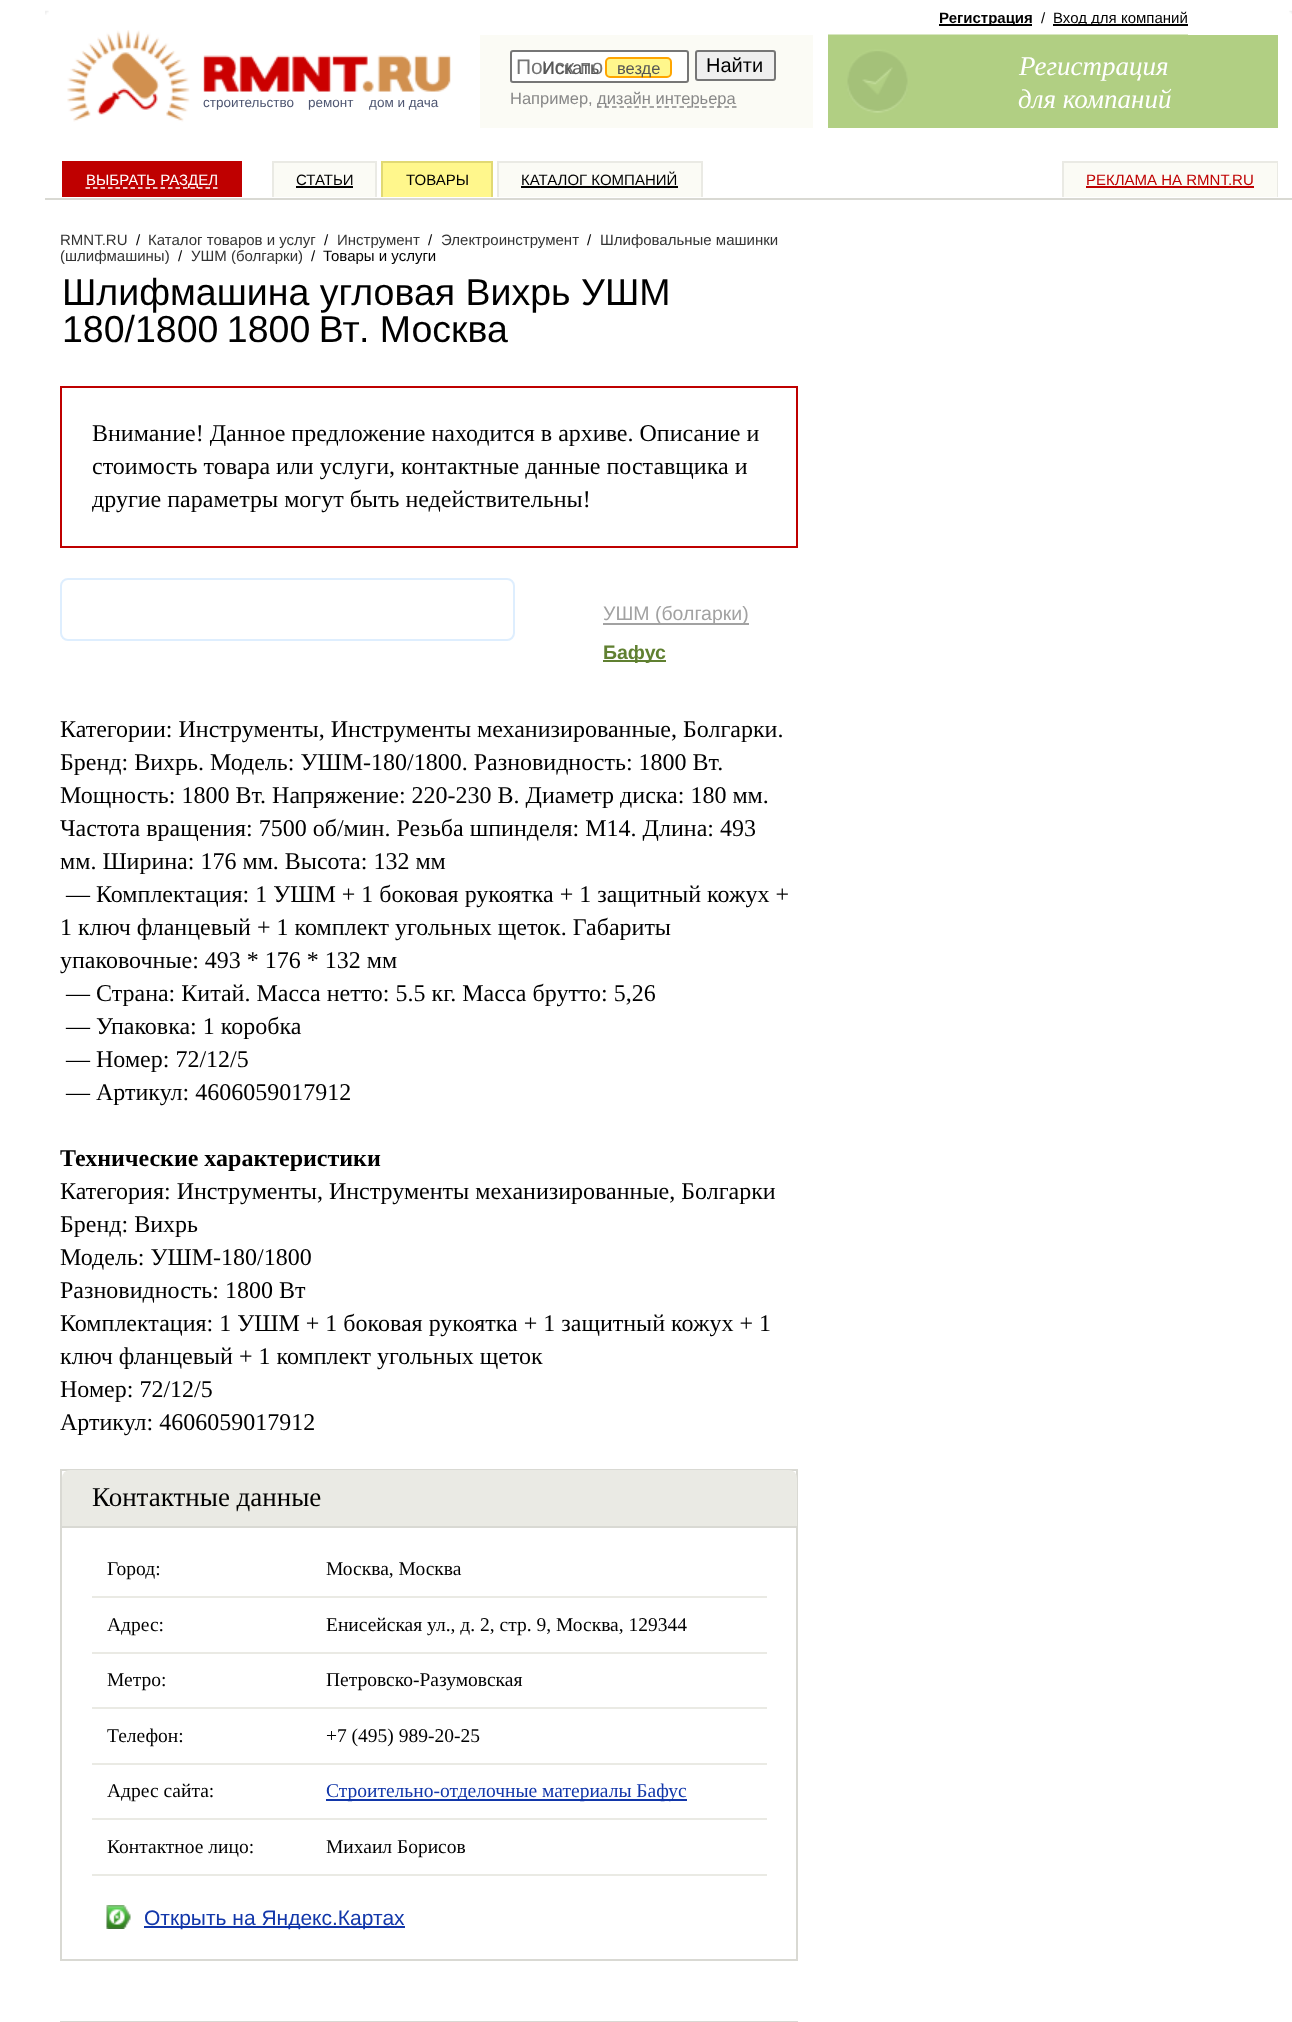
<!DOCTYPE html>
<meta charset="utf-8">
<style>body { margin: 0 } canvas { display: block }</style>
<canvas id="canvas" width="1292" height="2022"></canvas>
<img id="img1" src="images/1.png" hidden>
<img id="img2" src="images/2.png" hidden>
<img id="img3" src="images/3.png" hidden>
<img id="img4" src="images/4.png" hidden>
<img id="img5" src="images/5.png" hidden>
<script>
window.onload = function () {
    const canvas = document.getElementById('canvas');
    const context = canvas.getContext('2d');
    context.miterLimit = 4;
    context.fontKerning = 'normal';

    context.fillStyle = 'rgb(255, 255, 255)';
    context.fillRect(0, 0, 1292, 2022);
    context.drawImage(document.getElementById('img1'), 45, 10, 4, 5);
    context.drawImage(document.getElementById('img2'), 67, 30, 384, 92);
    context.fillStyle = 'rgb(251, 251, 245)';
    context.fillRect(480, 35, 333, 93);
    context.fillStyle = 'rgb(255, 255, 255)';
    context.beginPath();
    context.roundRect(511, 51, 177, 31, 2);
    context.fill();
    context.strokeStyle = 'rgb(118, 118, 118)';
    context.lineWidth = 2;
    context.stroke();
    context.fillStyle = 'rgb(255, 247, 140)';
    context.beginPath();
    context.roundRect(606, 58, 65, 19, 4);
    context.fill();
    context.strokeStyle = 'rgb(255, 165, 0)';
    context.stroke();
    context.fillStyle = 'rgb(239, 239, 239)';
    context.beginPath();
    context.roundRect(696, 51, 79, 29, 2);
    context.fill();
    context.strokeStyle = 'rgb(118, 118, 118)';
    context.stroke();
    context.beginPath();
    context.moveTo(597, 107);
    context.lineTo(736.5, 107);
    context.strokeStyle = 'rgb(136, 136, 136)';
    context.lineWidth = 1.5;
    context.setLineDash([4.5, 3]);
    context.stroke();
    context.fillStyle = 'rgb(0, 0, 0)';
    context.fillRect(939, 24, 93, 2);
    context.fillRect(1053, 24, 135, 2);
    context.fillStyle = 'rgb(177, 207, 131)';
    context.fillRect(828, 35, 450, 93);
    context.drawImage(document.getElementById('img3'), 828, 34, 360, 79);
    context.fillStyle = 'rgb(217, 217, 211)';
    context.fillRect(45, 198, 1247, 2);
    context.fillStyle = 'rgb(191, 0, 0)';
    context.fillRect(62, 161, 180, 36);
    context.beginPath();
    context.moveTo(85.5, 188);
    context.lineTo(217.5, 188);
    context.strokeStyle = 'rgb(255, 255, 255)';
    context.stroke();
    context.fillStyle = 'rgb(251, 251, 245)';
    context.fillRect(274, 163, 101, 34);
    context.fillStyle = 'rgb(234, 234, 228)';
    context.fillRect(272, 161, 105, 2);
    context.fillRect(375, 161, 2, 36);
    context.fillRect(272, 161, 2, 36);
    context.fillStyle = 'rgb(0, 0, 0)';
    context.fillRect(296, 186, 57, 2);
    context.fillStyle = 'rgb(255, 247, 140)';
    context.fillRect(383, 163, 108, 34);
    context.fillStyle = 'rgb(225, 217, 116)';
    context.fillRect(381, 161, 111, 2);
    context.fillRect(491, 161, 2, 36);
    context.fillRect(381, 161, 2, 36);
    context.fillStyle = 'rgb(251, 251, 245)';
    context.fillRect(499, 163, 202, 34);
    context.fillStyle = 'rgb(234, 234, 228)';
    context.fillRect(497, 161, 205, 2);
    context.fillRect(701, 161, 2, 36);
    context.fillRect(497, 161, 2, 36);
    context.fillStyle = 'rgb(0, 0, 0)';
    context.fillRect(521, 186, 157, 2);
    context.fillStyle = 'rgb(251, 251, 245)';
    context.fillRect(1064, 163, 213, 34);
    context.fillStyle = 'rgb(234, 234, 228)';
    context.fillRect(1062, 161, 216, 2);
    context.fillRect(1277, 161, 1, 36);
    context.fillRect(1062, 161, 2, 36);
    context.fillStyle = 'rgb(191, 0, 0)';
    context.fillRect(1086, 186, 168, 2);
    context.strokeStyle = 'rgb(191, 0, 0)';
    context.lineWidth = 2;
    context.setLineDash([]);
    context.strokeRect(61, 387, 736, 160);
    context.beginPath();
    context.roundRect(61, 579, 453, 61, 7);
    context.strokeStyle = 'rgb(222, 238, 254)';
    context.stroke();
    context.fillStyle = 'rgb(162, 162, 162)';
    context.fillRect(603, 623, 146, 2);
    context.fillStyle = 'rgb(96, 128, 49)';
    context.fillRect(603, 660, 63, 2);
    context.strokeStyle = 'rgb(217, 217, 211)';
    context.strokeRect(61, 1470, 736, 490);
    context.fillStyle = 'rgb(234, 234, 228)';
    context.beginPath();
    context.roundRect(62, 1470, 735, 57, [8, 8, 0, 0]);
    context.fill();
    context.fillStyle = 'rgb(217, 217, 211)';
    context.fillRect(62, 1526, 735, 2);
    context.fillStyle = 'rgb(234, 234, 228)';
    context.fillRect(92, 1596, 675, 2);
    context.fillRect(92, 1652, 675, 2);
    context.fillRect(92, 1707, 675, 2);
    context.fillRect(92, 1763, 675, 2);
    context.fillRect(92, 1818, 675, 2);
    context.fillStyle = 'rgb(18, 55, 170)';
    context.fillRect(326, 1799, 361, 2);
    context.fillStyle = 'rgb(234, 234, 228)';
    context.fillRect(92, 1874, 675, 2);
    context.drawImage(document.getElementById('img4'), 106, 1905, 25, 24);
    context.fillStyle = 'rgb(18, 55, 170)';
    context.fillRect(144, 1926, 261, 2);
    context.strokeRect(61, 2022, 736, 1);
    context.drawImage(document.getElementById('img5'), 1289, 10, 3, 4);
    context.font = '13.5px Liberation Sans';
    context.fillStyle = 'rgb(79, 87, 114)';
    context.fillText('строительство', 203, 107);
    context.fillText('ремонт', 308, 107);
    context.fillText('дом и дача', 369, 107);
    context.font = '21px Liberation Sans';
    context.fillStyle = 'rgb(117, 117, 117)';
    context.fillText('Поиск по', 516, 74);
    context.font = '18px Liberation Sans';
    context.fillStyle = 'rgb(85, 85, 85)';
    context.fillText('Искать', 542, 74);
    context.font = '16.5px Liberation Sans';
    context.fillText('везде', 617, 74);
    context.font = '20px Liberation Sans';
    context.fillStyle = 'rgb(0, 0, 0)';
    context.fillText('Найти', 706, 72);
    context.font = '16.5px Liberation Sans';
    context.fillStyle = 'rgb(136, 136, 136)';
    context.fillText('Например,', 510, 104);
    context.fillText('дизайн интерьера', 597, 104);
    context.font = 'bold 15px Liberation Sans';
    context.fillStyle = 'rgb(0, 0, 0)';
    context.fillText('Регистрация', 939, 23);
    context.font = '15px Liberation Sans';
    context.fillText('/', 1041, 23);
    context.fillText('Вход для компаний', 1053, 23);
    context.font = 'italic 27px Liberation Serif';
    context.fillStyle = 'rgb(255, 255, 255)';
    context.fillText('Регистрация', 1019, 75);
    context.fillText('для компаний', 1018, 108);
    context.font = '15px Liberation Sans';
    context.fillText('ВЫБРАТЬ РАЗДЕЛ', 86, 185);
    context.fillStyle = 'rgb(0, 0, 0)';
    context.fillText('СТАТЬИ', 296, 185);
    context.fillText('ТОВАРЫ', 406, 185);
    context.fillText('КАТАЛОГ КОМПАНИЙ', 521, 185);
    context.fillStyle = 'rgb(191, 0, 0)';
    context.fillText('РЕКЛАМА НА RMNT.RU', 1086, 185);
    context.fillStyle = 'rgb(51, 51, 51)';
    context.fillText('RMNT.RU', 60, 245);
    context.fillStyle = 'rgb(0, 0, 0)';
    context.fillText('/', 136, 245);
    context.fillStyle = 'rgb(51, 51, 51)';
    context.fillText('Каталог товаров и услуг', 148, 245);
    context.fillStyle = 'rgb(0, 0, 0)';
    context.fillText('/', 324, 245);
    context.fillStyle = 'rgb(51, 51, 51)';
    context.fillText('Инструмент', 337, 245);
    context.fillStyle = 'rgb(0, 0, 0)';
    context.fillText('/', 428, 245);
    context.fillStyle = 'rgb(51, 51, 51)';
    context.fillText('Электроинструмент', 441, 245);
    context.fillStyle = 'rgb(0, 0, 0)';
    context.fillText('/', 587, 245);
    context.fillStyle = 'rgb(51, 51, 51)';
    context.fillText('Шлифовальные машинки', 600, 245);
    context.fillText('(шлифмашины)', 60, 261);
    context.fillStyle = 'rgb(0, 0, 0)';
    context.fillText('/', 178, 261);
    context.fillStyle = 'rgb(51, 51, 51)';
    context.fillText('УШМ (болгарки)', 191, 261);
    context.fillStyle = 'rgb(0, 0, 0)';
    context.fillText('/', 311, 261);
    context.fillText('Товары и услуги', 323, 261);
    context.font = '37.5px Liberation Sans';
    context.fillText('Шлифмашина угловая Вихрь УШМ', 62, 305);
    context.wordSpacing = '-2px';
    context.fillText('180/1800 1800 Вт', 62, 342);
    context.wordSpacing = '0px';
    context.fillText('. Москва', 359, 342);
    context.font = '24px Liberation Serif';
    context.fillText('Внимание! Данное предложение находится в архиве. Описание и', 92, 441);
    context.fillText('стоимость товара или услуги, контактные данные поставщика и', 92, 474);
    context.fillText('другие параметры могут быть недействительны!', 92, 507);
    context.font = '19.5px Liberation Sans';
    context.fillStyle = 'rgb(162, 162, 162)';
    context.fillText('УШМ (болгарки)', 603, 620);
    context.font = 'bold 19.5px Liberation Sans';
    context.fillStyle = 'rgb(96, 128, 49)';
    context.fillText('Бафус', 603, 659);
    context.font = '24px Liberation Serif';
    context.fillStyle = 'rgb(0, 0, 0)';
    context.fillText('Категории: Инструменты, Инструменты механизированные, Болгарки.', 60, 737);
    context.fillText('Бренд: Вихрь. Модель: УШМ-180/1800. Разновидность: 1800 Вт.', 60, 770);
    context.fillText('Мощность: 1800 Вт. Напряжение: 220-230 В. Диаметр диска: 180 мм.', 60, 803);
    context.fillText('Частота вращения: 7500 об/мин. Резьба шпинделя: М14. Длина: 493', 60, 836);
    context.fillText('мм. Ширина: 176 мм. Высота: 132 мм', 60, 869);
    context.fillText('— Комплектация: 1 УШМ + 1 боковая рукоятка + 1 защитный кожух +', 66, 902);
    context.fillText('1 ключ фланцевый + 1 комплект угольных щеток. Габариты', 60, 935);
    context.fillText('упаковочные: 493 * 176 * 132 мм', 60, 968);
    context.fillText('— Страна: Китай. Масса нетто: 5.5 кг. Масса брутто: 5,26', 66, 1001);
    context.fillText('— Упаковка: 1 коробка', 66, 1034);
    context.fillText('— Номер: 72/12/5', 66, 1067);
    context.fillText('— Артикул: 4606059017912', 66, 1100);
    context.font = 'bold 24px Liberation Serif';
    context.fillText('Технические характеристики', 60, 1166);
    context.font = '24px Liberation Serif';
    context.fillText('Категория: Инструменты, Инструменты механизированные, Болгарки', 60, 1199);
    context.fillText('Бренд: Вихрь', 60, 1232);
    context.fillText('Модель: УШМ-180/1800', 60, 1265);
    context.fillText('Разновидность: 1800 Вт', 60, 1298);
    context.fillText('Комплектация: 1 УШМ + 1 боковая рукоятка + 1 защитный кожух + 1', 60, 1331);
    context.fillText('ключ фланцевый + 1 комплект угольных щеток', 60, 1364);
    context.fillText('Номер: 72/12/5', 60, 1397);
    context.fillText('Артикул: 4606059017912', 60, 1430);
    context.font = '27px Liberation Serif';
    context.fillText('Контактные данные', 92, 1506);
    context.font = '19.5px Liberation Serif';
    context.fillText('Город:', 107, 1575);
    context.fillText('Москва, Москва', 326, 1575);
    context.fillText('Адрес:', 107, 1631);
    context.fillText('Енисейская ул., д. 2, стр. 9, Москва, 129344', 326, 1631);
    context.fillText('Метро:', 107, 1686);
    context.fillText('Петровско-Разумовская', 326, 1686);
    context.fillText('Телефон:', 107, 1742);
    context.fillText('+7 (495) 989-20-25', 326, 1742);
    context.fillText('Адрес сайта:', 107, 1797);
    context.fillStyle = 'rgb(18, 55, 170)';
    context.fillText('Строительно-отделочные материалы Бафус', 326, 1797);
    context.fillStyle = 'rgb(0, 0, 0)';
    context.fillText('Контактное лицо:', 107, 1853);
    context.fillText('Михаил Борисов', 326, 1853);
    context.font = '21px Liberation Sans';
    context.fillStyle = 'rgb(18, 55, 170)';
    context.fillText('Открыть на Яндекс.Картах', 144, 1925);
};
</script>
